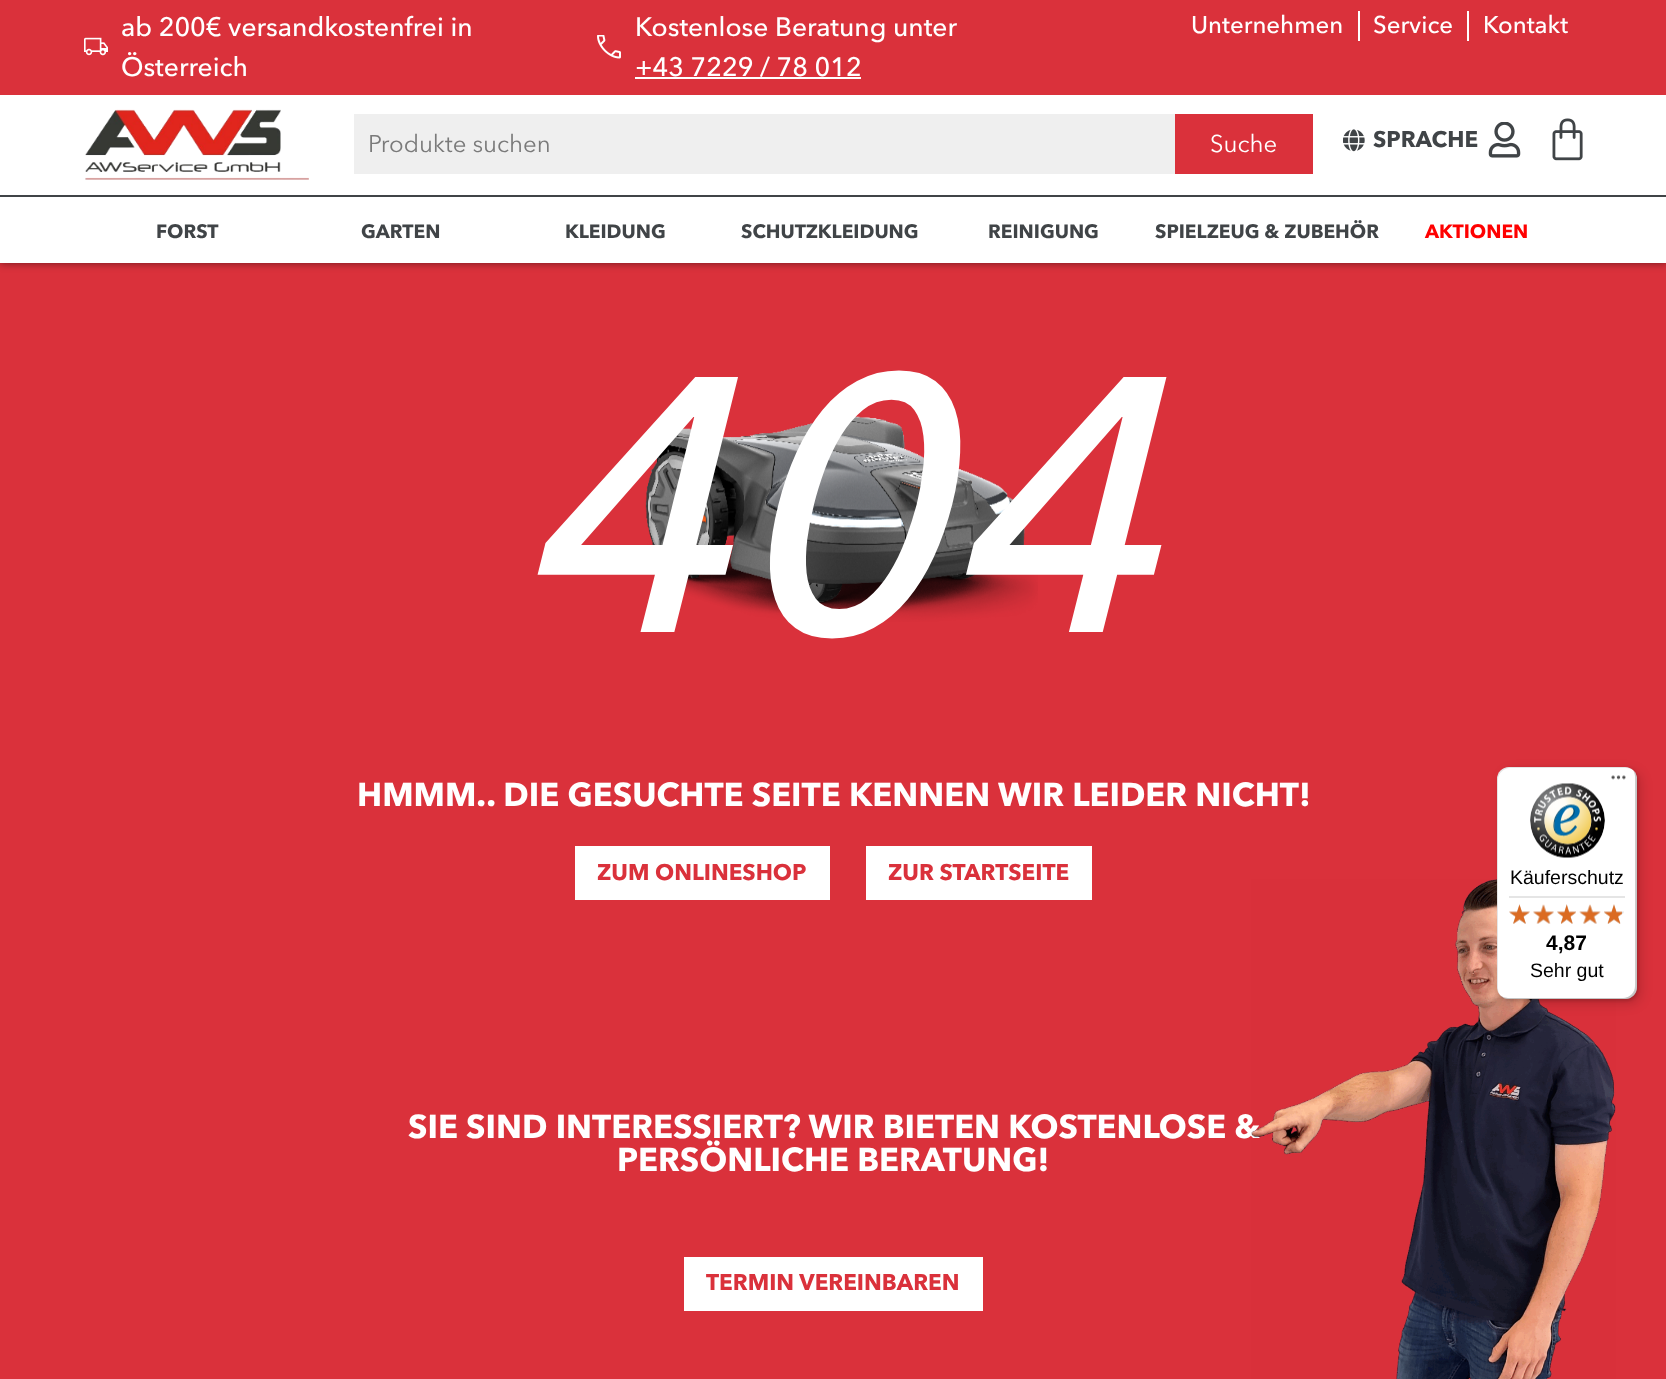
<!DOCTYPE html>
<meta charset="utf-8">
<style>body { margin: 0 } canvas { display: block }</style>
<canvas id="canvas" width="1666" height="1379"></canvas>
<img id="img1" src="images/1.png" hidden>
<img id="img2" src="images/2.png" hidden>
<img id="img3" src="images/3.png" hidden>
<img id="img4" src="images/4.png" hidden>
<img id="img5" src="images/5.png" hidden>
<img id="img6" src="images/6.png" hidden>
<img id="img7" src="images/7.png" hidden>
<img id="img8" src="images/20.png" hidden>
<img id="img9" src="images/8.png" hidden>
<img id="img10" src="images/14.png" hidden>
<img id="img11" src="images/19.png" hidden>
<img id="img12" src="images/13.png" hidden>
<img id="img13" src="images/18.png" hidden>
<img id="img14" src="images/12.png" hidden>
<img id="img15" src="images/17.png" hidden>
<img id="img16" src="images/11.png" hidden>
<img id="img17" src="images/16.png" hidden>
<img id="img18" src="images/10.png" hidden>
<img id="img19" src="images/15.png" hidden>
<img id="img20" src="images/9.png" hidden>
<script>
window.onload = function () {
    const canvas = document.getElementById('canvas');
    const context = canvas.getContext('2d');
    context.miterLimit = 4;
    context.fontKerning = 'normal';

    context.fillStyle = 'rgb(218, 49, 59)';
    context.fillRect(0, 0, 1666, 1379);
    context.fillStyle = 'rgba(0, 0, 0, 0.5)';
    context.filter = 'blur(4.5px)';
    context.beginPath();
    context.rect(0, 0, 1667, 263);
    context.fill();
    context.filter = 'none';
    context.fillStyle = 'rgb(255, 255, 255)';
    context.fillRect(0, 95, 1666, 168);
    context.fillStyle = 'rgb(218, 49, 59)';
    context.fillRect(0, 0, 1666, 95);
    context.drawImage(document.getElementById('img1'), 84, 37, 24, 19);
    context.drawImage(document.getElementById('img2'), 597, 35, 24, 24);
    context.fillStyle = 'rgb(255, 255, 255)';
    context.fillRect(635, 77, 226, 2);
    context.fillRect(1358, 11, 2, 30);
    context.fillRect(1467, 11, 2, 30);
    context.drawImage(document.getElementById('img3'), 85, 109, 224, 71);
    context.fillStyle = 'rgb(239, 239, 239)';
    context.fillRect(354, 114, 821, 60);
    context.fillStyle = 'rgb(218, 49, 59)';
    context.fillRect(1175, 114, 138, 60);
    context.drawImage(document.getElementById('img4'), 1343, 129, 22, 23);
    context.drawImage(document.getElementById('img5'), 1488, 122, 33, 36);
    context.drawImage(document.getElementById('img6'), 1552, 118, 31, 43);
    context.fillStyle = 'rgb(64, 68, 71)';
    context.fillRect(0, 195, 1666, 2);
    context.drawImage(document.getElementById('img7'), 645, 416, 393, 206);
    context.fillStyle = 'rgb(255, 255, 255)';
    context.fillRect(575, 846, 255, 54);
    context.fillRect(866, 846, 226, 54);
    context.fillRect(684, 1257, 299, 54);
    context.font = '500 26.4px Avenir Next';
    context.fillText('ab 200€ versandkostenfrei in', 121, 36);
    context.fillText('Österreich', 121, 76);
    context.fillText('Kostenlose Beratung unter', 635, 36);
    context.fillText('+43 7229 / 78 012', 635, 76);
    context.font = '500 24px Avenir Next';
    context.fillText('Unternehmen', 1191, 33);
    context.fillText('Service', 1373, 33);
    context.fillText('Kontakt', 1483, 33);
    context.font = '24px Avenir Next';
    context.fillStyle = 'rgb(122, 122, 122)';
    context.fillText('Produkte suchen', 368, 152);
    context.fillStyle = 'rgb(255, 255, 255)';
    context.fillText('Suche', 1210, 152);
    context.font = 'bold 22.5px Avenir Next';
    context.fillStyle = 'rgb(64, 68, 71)';
    context.fillText('SPRACHE', 1373, 147);
    context.font = 'bold 19.25px Avenir Next';
    context.fillText('FORST', 156, 238);
    context.fillText('GARTEN', 361, 238);
    context.fillText('KLEIDUNG', 565, 238);
    context.fillText('SCHUTZKLEIDUNG', 741, 238);
    context.fillText('REINIGUNG', 988, 238);
    context.fillText('SPIELZEUG & ZUBEHÖR', 1155, 238);
    context.fillStyle = 'rgb(255, 0, 0)';
    context.fillText('AKTIONEN', 1425, 238);
    context.font = 'italic 500 360px Avenir Next';
    context.fillStyle = 'rgb(255, 255, 255)';
    context.fillText('404', 512, 632);
    context.font = 'bold 32.9px Avenir Next';
    context.fillText('HMMM.. DIE GESUCHTE SEITE KENNEN WIR LEIDER NICHT!', 357, 806);
    context.font = 'bold 22.5px Avenir Next';
    context.fillStyle = 'rgb(218, 49, 59)';
    context.fillText('ZUM ONLINESHOP', 597, 880);
    context.fillText('ZUR STARTSEITE', 888, 880);
    context.font = 'bold 32.9px Avenir Next';
    context.fillStyle = 'rgb(255, 255, 255)';
    context.fillText('SIE SIND INTERESSIERT? WIR BIETEN KOSTENLOSE &', 408, 1138);
    context.fillText('PERSÖNLICHE BERATUNG!', 617, 1171);
    context.drawImage(document.getElementById('img8'), 1251, 879, 365, 500);
    context.fillStyle = 'rgba(0, 0, 0, 0.15)';
    context.filter = 'blur(1.5px)';
    context.beginPath();
    context.roundRect(1499, 768, 139, 233, 12);
    context.fill();
    context.filter = 'none';
    context.filter = 'blur(6px)';
    context.beginPath();
    context.roundRect(1502, 771, 139, 233, 12);
    context.fill();
    context.filter = 'none';
    context.fillStyle = 'rgb(255, 255, 255)';
    context.beginPath();
    context.roundRect(1497, 767, 140, 232, 12);
    context.fill();
    context.fillStyle = 'rgba(0, 0, 0, 0.1)';
    context.beginPath();
    context.moveTo(1510, 768);
    context.lineTo(1626, 768);
    context.bezierCurveTo(1629, 768, 1631, 769, 1633, 770);
    context.bezierCurveTo(1631, 768, 1628, 767, 1625, 767);
    context.lineTo(1509, 767);
    context.bezierCurveTo(1502, 767, 1497, 772, 1497, 779);
    context.lineTo(1497, 987);
    context.bezierCurveTo(1497, 991, 1499, 994, 1501, 996);
    context.bezierCurveTo(1499, 994, 1498, 991, 1498, 988);
    context.lineTo(1498, 780);
    context.bezierCurveTo(1498, 773, 1504, 768, 1510, 768);
    context.closePath();
    context.fill();
    context.fillStyle = 'rgba(0, 0, 0, 0.2)';
    context.beginPath();
    context.moveTo(1500, 995);
    context.bezierCurveTo(1502, 997, 1505, 999, 1509, 999);
    context.lineTo(1625, 999);
    context.bezierCurveTo(1632, 999, 1637, 994, 1637, 987);
    context.lineTo(1637, 779);
    context.bezierCurveTo(1637, 775, 1635, 772, 1633, 770);
    context.bezierCurveTo(1634, 772, 1635, 774, 1635, 777);
    context.lineTo(1635, 986);
    context.bezierCurveTo(1635, 992, 1630, 998, 1623, 998);
    context.lineTo(1508, 998);
    context.bezierCurveTo(1505, 998, 1502, 997, 1500, 995);
    context.closePath();
    context.fill();
    context.fillStyle = 'rgba(50, 50, 50, 0.2)';
    context.beginPath();
    context.moveTo(1501, 996);
    context.bezierCurveTo(1503, 998, 1506, 999, 1509, 999);
    context.lineTo(1625, 999);
    context.bezierCurveTo(1632, 999, 1637, 994, 1637, 987);
    context.lineTo(1637, 779);
    context.bezierCurveTo(1637, 775, 1635, 772, 1633, 770);
    context.bezierCurveTo(1635, 772, 1636, 775, 1636, 778);
    context.lineTo(1636, 986);
    context.bezierCurveTo(1636, 993, 1630, 998, 1624, 998);
    context.lineTo(1508, 998);
    context.bezierCurveTo(1505, 998, 1503, 997, 1501, 996);
    context.closePath();
    context.fill();
    context.fillStyle = 'rgba(255, 255, 255, 0.3)';
    context.beginPath();
    context.moveTo(1500, 995);
    context.bezierCurveTo(1502, 997, 1505, 999, 1509, 999);
    context.lineTo(1625, 999);
    context.bezierCurveTo(1632, 999, 1637, 994, 1637, 987);
    context.lineTo(1637, 779);
    context.bezierCurveTo(1637, 775, 1635, 772, 1633, 770);
    context.bezierCurveTo(1635, 772, 1636, 775, 1636, 778);
    context.lineTo(1636, 986);
    context.bezierCurveTo(1636, 993, 1630, 998, 1624, 998);
    context.lineTo(1508, 998);
    context.bezierCurveTo(1505, 998, 1502, 997, 1500, 995);
    context.closePath();
    context.fill();
    context.drawImage(document.getElementById('img9'), 1611, 775, 15, 5);
    context.drawImage(document.getElementById('img10'), 1604, 904, 20, 20);
    context.drawImage(document.getElementById('img11'), 1604, 904, 18, 20);
    context.drawImage(document.getElementById('img12'), 1580, 905, 20, 19);
    context.drawImage(document.getElementById('img13'), 1579, 904, 22, 20);
    context.drawImage(document.getElementById('img14'), 1557, 904, 19, 20);
    context.drawImage(document.getElementById('img15'), 1557, 904, 19, 20);
    context.drawImage(document.getElementById('img16'), 1533, 905, 21, 19);
    context.drawImage(document.getElementById('img17'), 1533, 904, 21, 20);
    context.drawImage(document.getElementById('img18'), 1509, 904, 21, 20);
    context.drawImage(document.getElementById('img19'), 1509, 904, 21, 20);
    context.font = '19.5px Liberation Sans';
    context.fillStyle = 'rgb(0, 0, 0)';
    context.fillText('Sehr gut', 1530, 977);
    context.font = 'bold 21px Liberation Sans';
    context.fillText('4,87', 1546, 950);
    context.font = '19.5px Liberation Sans';
    context.fillText('Käuferschutz', 1510, 884);
    context.drawImage(document.getElementById('img20'), 1530, 783, 75, 75);
    context.fillStyle = 'rgb(229, 229, 229)';
    context.fillRect(1509, 896, 116, 2);
    context.font = 'bold 22.5px Avenir Next';
    context.fillStyle = 'rgb(218, 49, 59)';
    context.fillText('TERMIN VEREINBAREN', 706, 1290);
};
</script>
